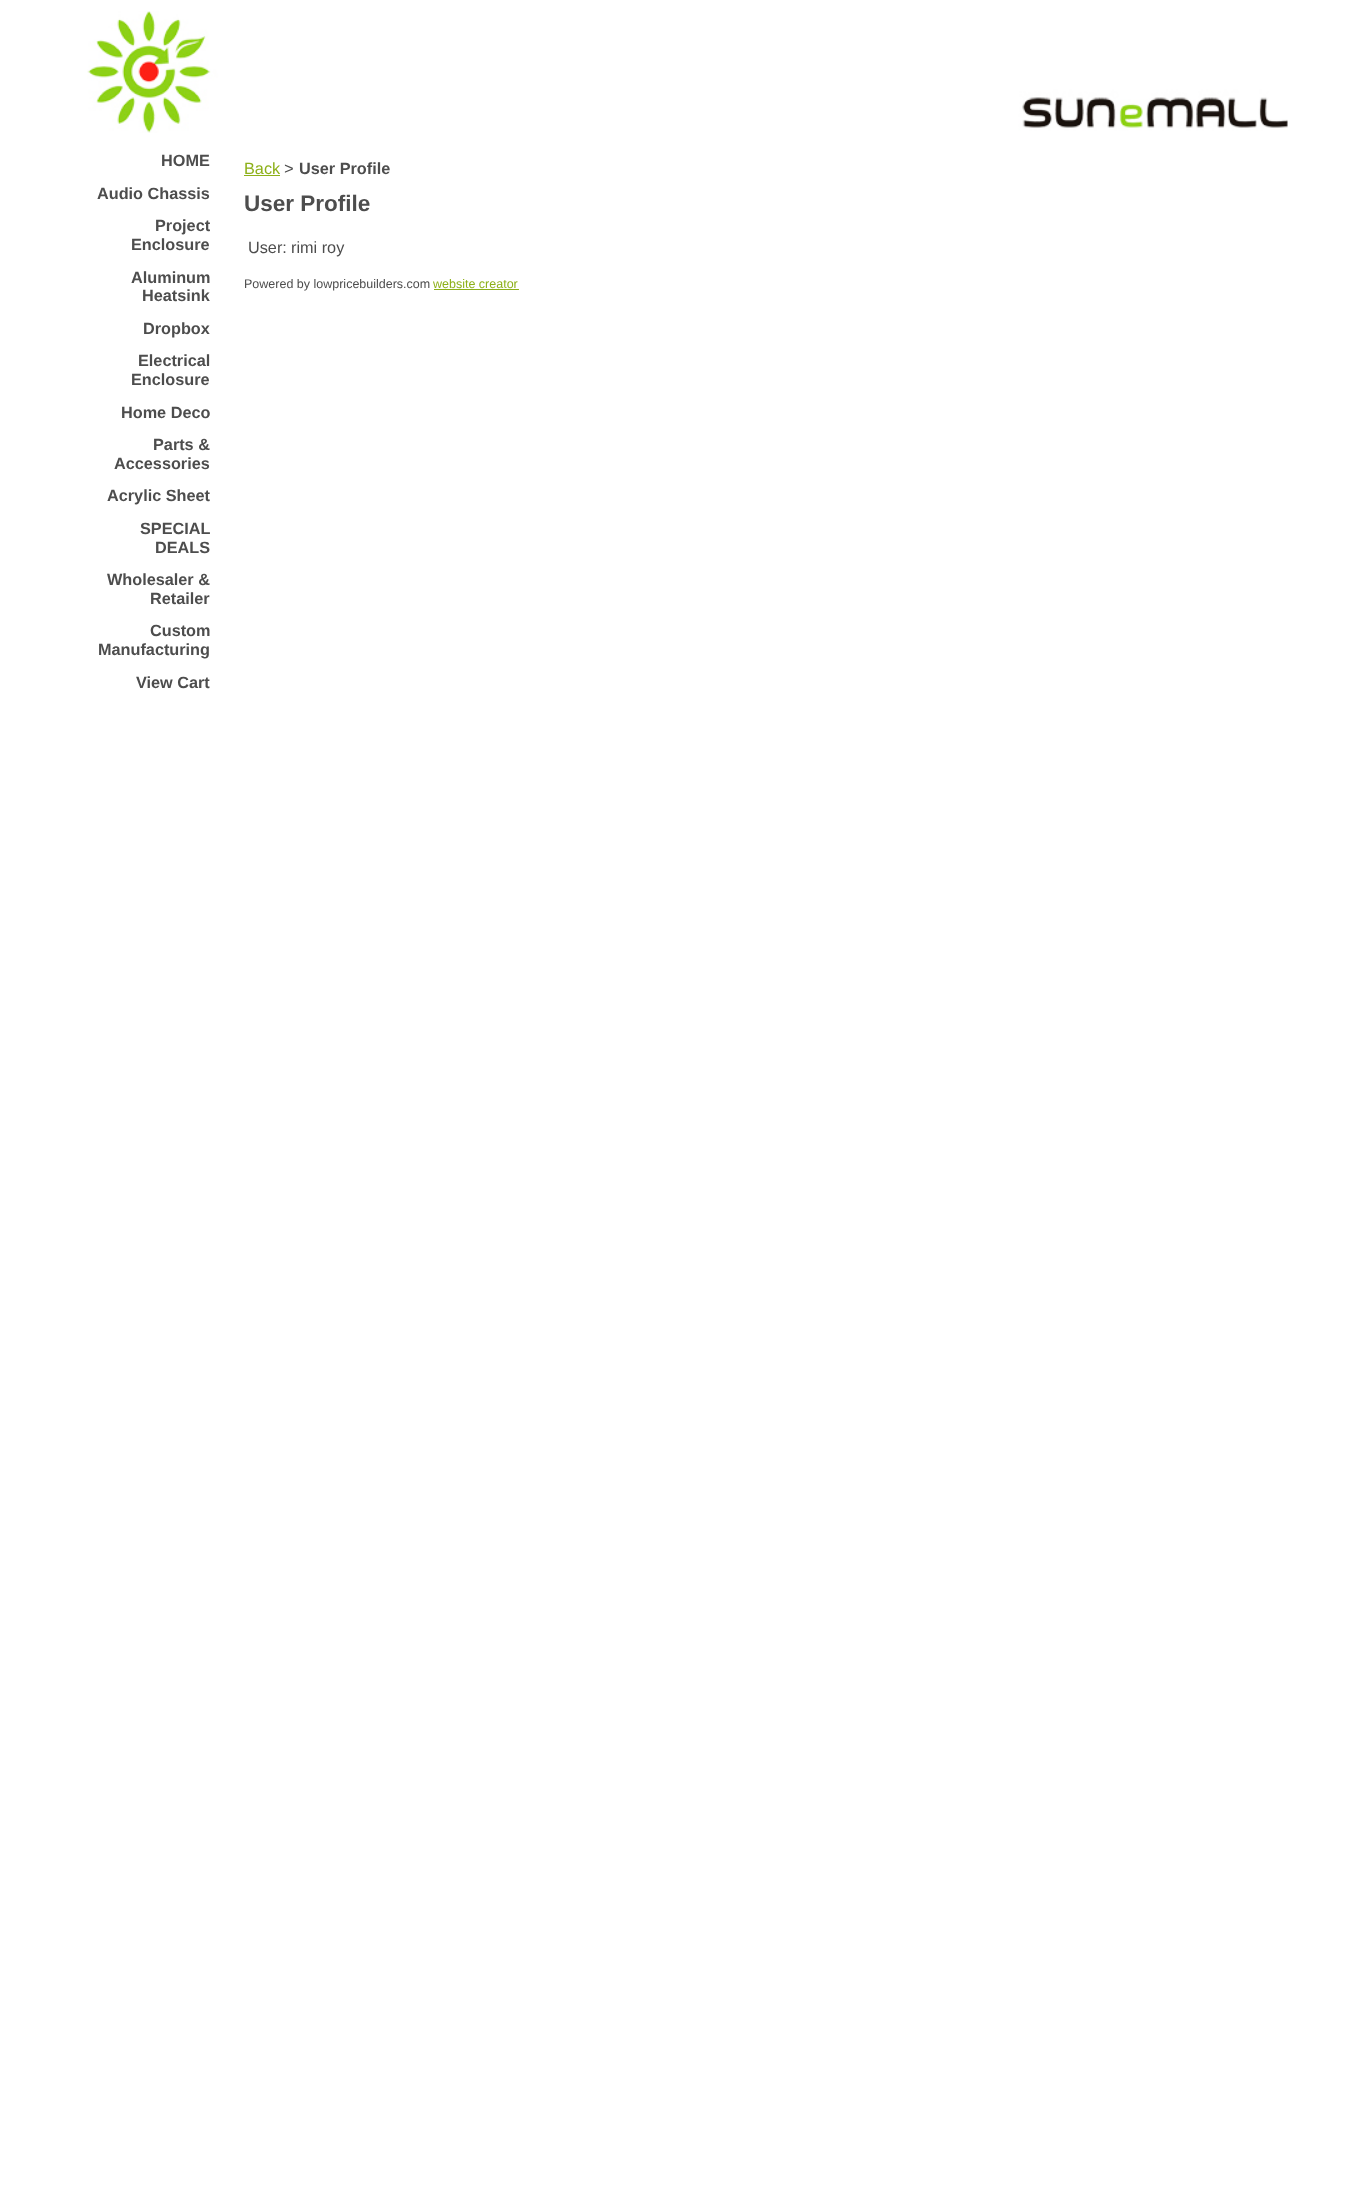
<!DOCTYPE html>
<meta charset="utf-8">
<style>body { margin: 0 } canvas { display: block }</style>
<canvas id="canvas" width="1362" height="2201"></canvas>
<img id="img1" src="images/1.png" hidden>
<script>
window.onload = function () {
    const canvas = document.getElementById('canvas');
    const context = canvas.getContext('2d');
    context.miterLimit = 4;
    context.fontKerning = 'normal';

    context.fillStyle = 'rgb(255, 255, 255)';
    context.fillRect(0, 0, 1362, 2201);
    context.drawImage(document.getElementById('img1'), 87, 11, 1201, 122);
    context.fillStyle = 'rgb(141, 176, 25)';
    context.fillRect(244, 175, 36, 1);
    context.fillRect(434, 289, 85, 1);
    context.font = 'bold 16.25px Liberation Sans';
    context.fillStyle = 'rgb(77, 77, 77)';
    context.fillText('HOME', 161, 166);
    context.fillText('Audio Chassis', 97, 199);
    context.fillText('Project', 155, 231);
    context.fillText('Enclosure', 131, 250);
    context.fillText('Aluminum', 131, 283);
    context.fillText('Heatsink', 142, 301);
    context.fillText('Dropbox', 143, 334);
    context.fillText('Electrical', 138, 366);
    context.fillText('Enclosure', 131, 385);
    context.fillText('Home Deco', 121, 418);
    context.fillText('Parts &', 153, 450);
    context.fillText('Accessories', 114, 469);
    context.fillText('Acrylic Sheet', 107, 501);
    context.fillText('SPECIAL', 140, 534);
    context.fillText('DEALS', 155, 553);
    context.fillText('Wholesaler &', 107, 585);
    context.fillText('Retailer', 150, 604);
    context.fillText('Custom', 150, 636);
    context.fillText('Manufacturing', 98, 655);
    context.fillText('View Cart', 136, 688);
    context.font = '16.25px Liberation Sans';
    context.fillStyle = 'rgb(141, 176, 25)';
    context.fillText('Back', 244, 174);
    context.font = '16.25px Liberation Mono';
    context.fillStyle = 'rgb(77, 77, 77)';
    context.fillText('>', 284, 174);
    context.font = 'bold 16.25px Liberation Sans';
    context.fillText('User Profile', 299, 174);
    context.font = 'bold 22.5px Liberation Sans';
    context.fillText('User Profile', 244, 211);
    context.font = '16.25px Liberation Sans';
    context.fillText('User:', 248, 253);
    context.fillText('rimi roy', 291, 253);
    context.font = '12.5px Liberation Sans';
    context.fillText('Powered by lowpricebuilders.com', 244, 288);
    context.fillStyle = 'rgb(141, 176, 25)';
    context.fillText('website creator', 433, 288);
};
</script>
